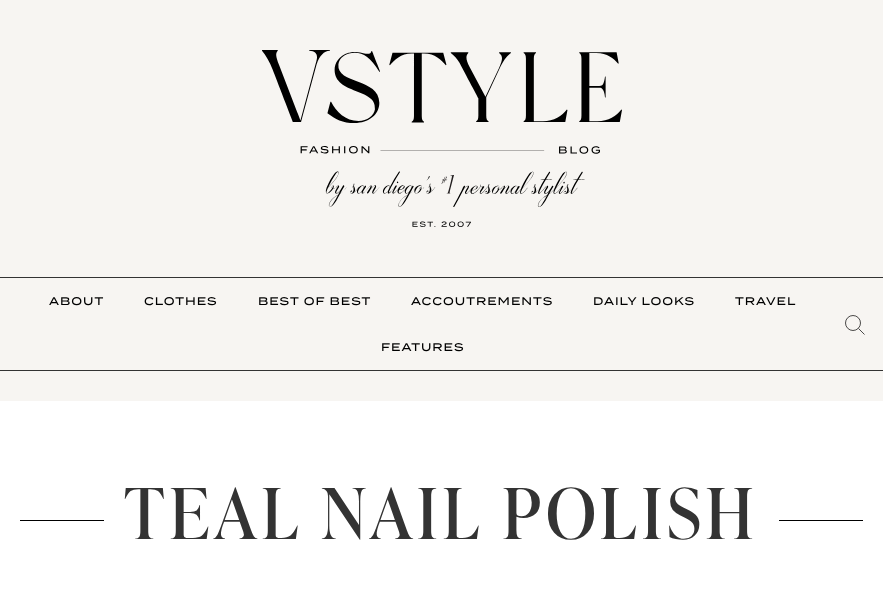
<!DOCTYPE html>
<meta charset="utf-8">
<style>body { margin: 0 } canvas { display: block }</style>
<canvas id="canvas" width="883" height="593"></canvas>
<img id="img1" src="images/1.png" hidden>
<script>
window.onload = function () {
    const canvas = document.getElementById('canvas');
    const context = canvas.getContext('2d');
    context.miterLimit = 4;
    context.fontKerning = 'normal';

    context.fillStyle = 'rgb(255, 255, 255)';
    context.fillRect(0, 0, 883, 593);
    context.fillStyle = 'rgb(247, 245, 242)';
    context.fillRect(0, 0, 883, 401);
    context.drawImage(document.getElementById('img1'), 262, 50, 360, 177);
    context.fillStyle = 'rgb(51, 51, 51)';
    context.fillRect(0, 277, 883, 1);
    context.fillRect(0, 370, 883, 1);
    context.beginPath();
    context.arc(853, 323, 7.5, 0, 2 * Math.PI);
    context.strokeStyle = 'rgb(0, 0, 0)';
    context.lineWidth = 0.7;
    context.stroke();
    context.beginPath();
    context.moveTo(858.5, 328.5);
    context.lineTo(864.5, 334.5);
    context.stroke();
    context.fillStyle = 'rgb(0, 0, 0)';
    context.fillRect(20, 520, 84, 1);
    context.fillRect(779, 520, 84, 1);
    context.letterSpacing = '1px';
    context.font = '500 11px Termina';
    context.fillText('ABOUT', 49, 305);
    context.fillText('CLOTHES', 144, 305);
    context.fillText('BEST OF BEST', 258, 305);
    context.fillText('ACCOUTREMENTS', 411, 305);
    context.fillText('DAILY LOOKS', 593, 305);
    context.fillText('TRAVEL', 735, 305);
    context.fillText('FEATURES', 381, 351);
    context.letterSpacing = '5px';
    context.font = '70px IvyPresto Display';
    context.fillStyle = 'rgb(51, 51, 51)';
    context.fillText('TEAL NAIL POLISH', 124, 539);
};
</script>
